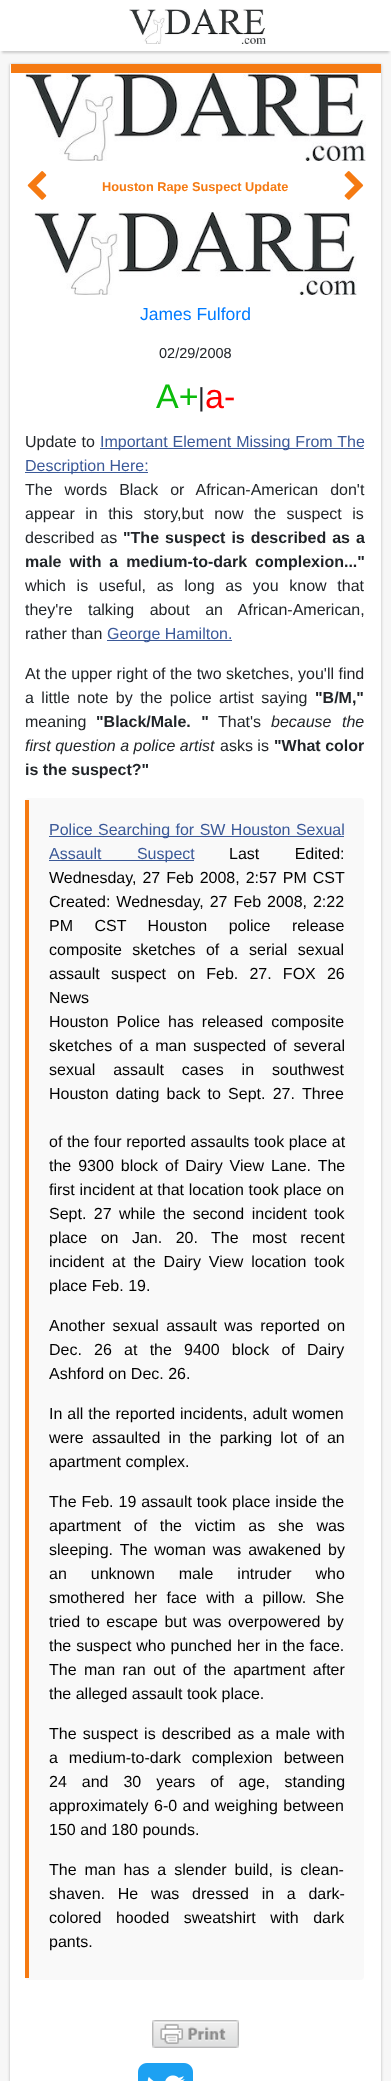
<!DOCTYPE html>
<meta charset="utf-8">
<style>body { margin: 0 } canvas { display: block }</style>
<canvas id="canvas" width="391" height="2081"></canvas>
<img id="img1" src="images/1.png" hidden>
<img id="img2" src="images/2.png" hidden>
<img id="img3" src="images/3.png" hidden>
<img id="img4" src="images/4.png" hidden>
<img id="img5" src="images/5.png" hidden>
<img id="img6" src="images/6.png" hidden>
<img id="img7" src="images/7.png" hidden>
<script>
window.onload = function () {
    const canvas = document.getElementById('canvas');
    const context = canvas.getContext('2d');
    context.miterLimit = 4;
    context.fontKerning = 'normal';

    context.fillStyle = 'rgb(247, 247, 247)';
    context.fillRect(0, 0, 391, 2081);
    context.fillStyle = 'rgb(255, 255, 255)';
    context.fillRect(0, 0, 391, 51);
    context.save();
    context.beginPath();
    context.rect(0, 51, 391, 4);
    context.clip();
    context.fillStyle = 'rgb(204, 204, 204)';
    context.filter = 'blur(1px)';
    context.beginPath();
    context.rect(2, 6, 387, 47);
    context.fill();
    context.filter = 'none';
    context.restore();
    context.drawImage(document.getElementById('img1'), 129, 9, 137, 35);
    context.fillStyle = 'rgba(0, 0, 0, 0.24)';
    context.filter = 'blur(0.5px)';
    context.beginPath();
    context.roundRect(10, 65, 371, 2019, 1);
    context.fill();
    context.filter = 'none';
    context.fillStyle = 'rgba(0, 0, 0, 0.12)';
    context.filter = 'blur(1px)';
    context.beginPath();
    context.roundRect(11, 64, 371, 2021, 1);
    context.fill();
    context.filter = 'none';
    context.filter = 'blur(1px)';
    context.beginPath();
    context.roundRect(9, 64, 371, 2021, 1);
    context.fill();
    context.filter = 'none';
    context.fillStyle = 'rgb(255, 255, 255)';
    context.beginPath();
    context.roundRect(10, 64, 371, 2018, 1);
    context.fill();
    context.fillStyle = 'rgb(245, 122, 18)';
    context.fillRect(11, 64, 370, 9);
    context.drawImage(document.getElementById('img2'), 25, 73, 341, 88);
    context.drawImage(document.getElementById('img3'), 27, 171, 20, 29);
    context.drawImage(document.getElementById('img4'), 344, 171, 20, 29);
    context.drawImage(document.getElementById('img5'), 34, 212, 323, 83);
    context.fillStyle = 'rgb(59, 89, 152)';
    context.fillRect(100, 448, 264, 1);
    context.fillRect(25, 472, 123, 1);
    context.fillRect(107, 640, 125, 1);
    context.fillStyle = 'rgb(249, 249, 249)';
    context.beginPath();
    context.roundRect(25, 798, 339, 1182, 4);
    context.fill();
    context.fillStyle = 'rgb(245, 122, 18)';
    context.fillRect(25, 800, 4, 1178);
    context.fillStyle = 'rgb(59, 89, 152)';
    context.fillRect(49, 836, 295, 1);
    context.fillRect(49, 860, 145, 1);
    context.drawImage(document.getElementById('img6'), 152, 2020, 87, 28);
    context.drawImage(document.getElementById('img7'), 138, 2063, 55, 18);
    context.font = 'bold 12.75px Liberation Sans';
    context.fillStyle = 'rgb(245, 122, 18)';
    context.fillText('Houston Rape Suspect Update', 102, 191);
    context.font = '17.5px Liberation Sans';
    context.fillStyle = 'rgb(0, 123, 255)';
    context.fillText('James Fulford', 140, 320);
    context.font = '14.5px Liberation Sans';
    context.fillStyle = 'rgb(33, 37, 41)';
    context.fillText('02/29/2008', 159, 358);
    context.font = '34px Liberation Sans';
    context.fillStyle = 'rgb(11, 188, 11)';
    context.fillText('A+', 156, 408);
    context.font = '26px Liberation Sans';
    context.fillStyle = 'rgb(33, 37, 41)';
    context.fillText('|', 198, 406);
    context.font = '34px Liberation Sans';
    context.fillStyle = 'rgb(255, 0, 0)';
    context.fillText('a-', 205, 408);
    context.wordSpacing = '0.5px';
    context.font = '16px Liberation Sans';
    context.fillStyle = 'rgb(33, 37, 41)';
    context.fillText('Update to', 25, 447);
    context.fillStyle = 'rgb(59, 89, 152)';
    context.fillText('Important Element Missing From The', 100, 447);
    context.wordSpacing = '0px';
    context.fillText('Description Here:', 25, 471);
    context.wordSpacing = '7.5px';
    context.fillStyle = 'rgb(33, 37, 41)';
    context.fillText('The words Black or African-American don\'t', 25, 495);
    context.wordSpacing = '6px';
    context.fillText('appear in this story,but now the suspect is', 25, 519);
    context.wordSpacing = '1.5px';
    context.fillText('described as', 25, 543);
    context.font = 'bold 16px Liberation Sans';
    context.fillText('"The suspect is described as a', 123, 543);
    context.wordSpacing = '3.5px';
    context.fillText('male with a medium-to-dark complexion..."', 25, 567);
    context.wordSpacing = '6.25px';
    context.font = '16px Liberation Sans';
    context.fillText('which is useful, as long as you know that', 25, 591);
    context.wordSpacing = '11px';
    context.fillText('they\'re talking about an African-American,', 25, 615);
    context.wordSpacing = '0px';
    context.fillText('rather than', 25, 639);
    context.fillStyle = 'rgb(59, 89, 152)';
    context.fillText('George Hamilton.', 107, 639);
    context.fillStyle = 'rgb(33, 37, 41)';
    context.fillText('At the upper right of the two sketches, you\'ll find', 25, 679);
    context.wordSpacing = '3px';
    context.fillText('a little note by the police artist saying', 25, 703);
    context.wordSpacing = '0px';
    context.font = 'bold 16px Liberation Sans';
    context.fillText('"B/M,"', 315, 703);
    context.font = '16px Liberation Sans';
    context.fillText('meaning', 25, 727);
    context.wordSpacing = '6px';
    context.font = 'bold 16px Liberation Sans';
    context.fillText('"Black/Male. "', 96, 727);
    context.wordSpacing = '0px';
    context.font = '16px Liberation Sans';
    context.fillText('That\'s', 218, 727);
    context.wordSpacing = '6px';
    context.font = 'italic 16px Liberation Sans';
    context.fillText('because the', 271, 727);
    context.wordSpacing = '0px';
    context.fillText('first question a police artist', 25, 751);
    context.font = '16px Liberation Sans';
    context.fillText('asks is', 220, 751);
    context.font = 'bold 16px Liberation Sans';
    context.fillText('"What color', 274, 751);
    context.fillText('is the suspect?"', 25, 775);
    context.wordSpacing = '1px';
    context.font = '16px Liberation Sans';
    context.fillStyle = 'rgb(59, 89, 152)';
    context.fillText('Police Searching for SW Houston Sexual', 49, 835);
    context.wordSpacing = '31px';
    context.fillText('Assault Suspect', 49, 859);
    context.fillStyle = 'rgb(0, 0, 0)';
    context.fillText('Last Edited:', 229, 859);
    context.wordSpacing = '1.5px';
    context.fillText('Wednesday, 27 Feb 2008, 2:57 PM CST', 49, 883);
    context.fillText('Created: Wednesday, 27 Feb 2008, 2:22', 49, 907);
    context.wordSpacing = '17px';
    context.fillText('PM CST Houston police release', 49, 931);
    context.wordSpacing = '6px';
    context.fillText('composite sketches of a serial sexual', 49, 955);
    context.wordSpacing = '6.75px';
    context.fillText('assault suspect on Feb. 27. FOX 26', 49, 979);
    context.wordSpacing = '0px';
    context.fillText('News', 49, 1003);
    context.wordSpacing = '3.5px';
    context.fillText('Houston Police has released composite', 49, 1027);
    context.wordSpacing = '2.5px';
    context.fillText('sketches of a man suspected of several', 49, 1051);
    context.wordSpacing = '13.5px';
    context.fillText('sexual assault cases in southwest', 49, 1075);
    context.wordSpacing = '2.75px';
    context.fillText('Houston dating back to Sept. 27.', 49, 1099);
    context.wordSpacing = '0px';
    context.fillText('Three', 302, 1099);
    context.wordSpacing = '0.25px';
    context.fillText('of the four reported assaults took place at', 49, 1147);
    context.wordSpacing = '2.5px';
    context.fillText('the 9300 block of Dairy View Lane. The', 49, 1171);
    context.wordSpacing = '0.25px';
    context.fillText('first incident at that location took place on', 49, 1195);
    context.wordSpacing = '3px';
    context.fillText('Sept. 27 while the second incident took', 49, 1219);
    context.wordSpacing = '9px';
    context.fillText('place on Jan. 20. The most recent', 49, 1243);
    context.wordSpacing = '3.5px';
    context.fillText('incident at the Dairy View location took', 49, 1267);
    context.wordSpacing = '0px';
    context.fillText('place Feb. 19.', 49, 1291);
    context.wordSpacing = '3px';
    context.fillText('Another sexual assault was reported on', 49, 1331);
    context.wordSpacing = '7.75px';
    context.fillText('Dec. 26 at the 9400 block of Dairy', 49, 1355);
    context.wordSpacing = '0px';
    context.fillText('Ashford on Dec. 26.', 49, 1379);
    context.wordSpacing = '0.5px';
    context.fillText('In all the reported incidents, adult women', 49, 1419);
    context.wordSpacing = '3.75px';
    context.fillText('were assaulted in the parking lot of an', 49, 1443);
    context.wordSpacing = '0px';
    context.fillText('apartment complex.', 49, 1467);
    context.wordSpacing = '0.5px';
    context.fillText('The Feb. 19 assault took place inside the', 49, 1507);
    context.wordSpacing = '8.25px';
    context.fillText('apartment of the victim as she was', 49, 1531);
    context.wordSpacing = '2.5px';
    context.fillText('sleeping. The woman was awakened by', 49, 1555);
    context.wordSpacing = '19.5px';
    context.fillText('an unknown male intruder who', 49, 1579);
    context.wordSpacing = '5px';
    context.fillText('smothered her face with a pillow. She', 49, 1603);
    context.wordSpacing = '2px';
    context.fillText('tried to escape but was overpowered by', 49, 1627);
    context.wordSpacing = '0.5px';
    context.fillText('the suspect who punched her in the face.', 49, 1651);
    context.wordSpacing = '3px';
    context.fillText('The man ran out of the apartment after', 49, 1675);
    context.wordSpacing = '0px';
    context.fillText('the alleged assault took place.', 49, 1699);
    context.wordSpacing = '1.75px';
    context.fillText('The suspect is described as a male with', 49, 1739);
    context.wordSpacing = '6.5px';
    context.fillText('a medium-to-dark complexion between', 49, 1763);
    context.wordSpacing = '10.5px';
    context.fillText('24 and 30 years of age, standing', 49, 1787);
    context.wordSpacing = '1px';
    context.fillText('approximately 6-0 and weighing between', 49, 1811);
    context.wordSpacing = '0px';
    context.fillText('150 and 180 pounds.', 49, 1835);
    context.wordSpacing = '3.5px';
    context.fillText('The man has a slender build, is clean-', 49, 1875);
    context.wordSpacing = '8.25px';
    context.fillText('shaven. He was dressed in a dark-', 49, 1899);
    context.wordSpacing = '10px';
    context.fillText('colored hooded sweatshirt with dark', 49, 1923);
    context.wordSpacing = '0px';
    context.fillText('pants.', 49, 1947);
};
</script>
